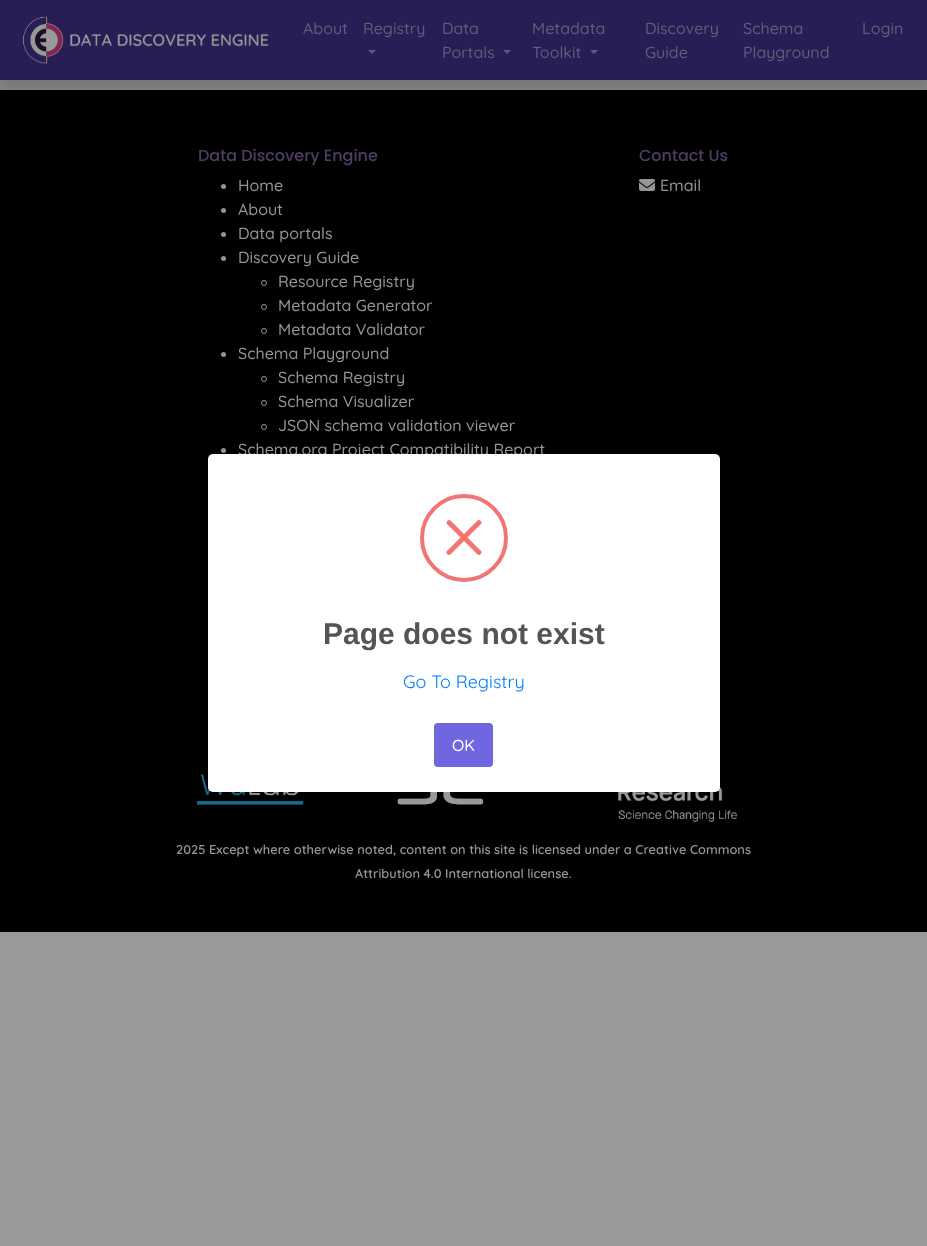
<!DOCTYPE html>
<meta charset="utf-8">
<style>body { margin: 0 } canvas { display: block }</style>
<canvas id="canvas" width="927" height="1246"></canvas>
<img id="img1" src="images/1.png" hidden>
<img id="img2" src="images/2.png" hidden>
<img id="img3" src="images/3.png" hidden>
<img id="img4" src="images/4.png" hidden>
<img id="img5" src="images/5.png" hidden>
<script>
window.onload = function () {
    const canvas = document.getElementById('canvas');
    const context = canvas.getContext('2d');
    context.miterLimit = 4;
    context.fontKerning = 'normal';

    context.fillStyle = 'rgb(153, 153, 153)';
    context.fillRect(0, 0, 927, 1246);
    context.fillStyle = 'rgb(136, 136, 137)';
    context.fillRect(0, 80, 927, 10);
    context.fillStyle = 'rgb(0, 0, 0)';
    context.fillRect(0, 90, 927, 842);
    context.fillStyle = 'rgba(0, 0, 0, 0.15)';
    context.filter = 'blur(8px)';
    context.beginPath();
    context.rect(0, 8, 927, 80);
    context.fill();
    context.filter = 'none';
    context.fillStyle = 'rgb(40, 29, 85)';
    context.fillRect(0, 0, 927, 80);
    context.drawImage(document.getElementById('img1'), 23, 16, 246, 48);
    context.fillStyle = 'rgb(97, 91, 119)';
    context.beginPath();
    context.moveTo(368, 50);
    context.lineTo(376, 50);
    context.lineTo(372, 54);
    context.closePath();
    context.fill();
    context.beginPath();
    context.moveTo(503, 50);
    context.lineTo(511, 50);
    context.lineTo(507, 54);
    context.closePath();
    context.fill();
    context.beginPath();
    context.moveTo(590, 50);
    context.lineTo(598, 50);
    context.lineTo(594, 54);
    context.closePath();
    context.fill();
    context.fillStyle = 'rgb(149, 149, 150)';
    context.beginPath();
    context.arc(223.5, 186.5, 2.5, 0, 2 * Math.PI);
    context.fill();
    context.beginPath();
    context.arc(223.5, 210.5, 2.5, 0, 2 * Math.PI);
    context.fill();
    context.beginPath();
    context.arc(223.5, 234.5, 2.5, 0, 2 * Math.PI);
    context.fill();
    context.beginPath();
    context.arc(223.5, 258.5, 2.5, 0, 2 * Math.PI);
    context.fill();
    context.beginPath();
    context.arc(264, 283, 2.5, 0, 2 * Math.PI);
    context.strokeStyle = 'rgb(149, 149, 150)';
    context.stroke();
    context.beginPath();
    context.arc(264, 307, 2.5, 0, 2 * Math.PI);
    context.stroke();
    context.beginPath();
    context.arc(264, 331, 2.5, 0, 2 * Math.PI);
    context.stroke();
    context.beginPath();
    context.arc(223.5, 354.5, 2.5, 0, 2 * Math.PI);
    context.fill();
    context.beginPath();
    context.arc(264, 379, 2.5, 0, 2 * Math.PI);
    context.stroke();
    context.beginPath();
    context.arc(264, 403, 2.5, 0, 2 * Math.PI);
    context.stroke();
    context.beginPath();
    context.arc(264, 427, 2.5, 0, 2 * Math.PI);
    context.stroke();
    context.beginPath();
    context.arc(223.5, 450.5, 2.5, 0, 2 * Math.PI);
    context.fill();
    context.drawImage(document.getElementById('img2'), 639, 179, 16, 12);
    context.drawImage(document.getElementById('img3'), 196, 774, 108, 31);
    context.drawImage(document.getElementById('img4'), 397, 792, 87, 13);
    context.drawImage(document.getElementById('img5'), 618, 787, 120, 35);
    context.font = '500 16px Quicksand';
    context.fillStyle = 'rgb(97, 91, 119)';
    context.fillText('About', 303, 34);
    context.fillText('Registry', 363, 34);
    context.fillText('Data', 442, 34);
    context.fillText('Portals', 442, 58);
    context.fillText('Metadata', 532, 34);
    context.fillText('Toolkit', 532, 58);
    context.fillText('Discovery', 645, 34);
    context.fillText('Guide', 645, 58);
    context.fillText('Schema', 743, 34);
    context.fillText('Playground', 743, 58);
    context.fillText('Login', 862, 34);
    context.font = '500 16px Poppins';
    context.fillStyle = 'rgb(78, 61, 100)';
    context.fillText('Data Discovery Engine', 198, 161);
    context.font = '500 16px Quicksand';
    context.fillStyle = 'rgb(149, 149, 150)';
    context.fillText('Home', 238, 191);
    context.fillText('About', 238, 215);
    context.fillText('Data portals', 238, 239);
    context.fillText('Discovery Guide', 238, 263);
    context.fillText('Resource Registry', 278, 287);
    context.fillText('Metadata Generator', 278, 311);
    context.fillText('Metadata Validator', 278, 335);
    context.fillText('Schema Playground', 238, 359);
    context.fillText('Schema Registry', 278, 383);
    context.fillText('Schema Visualizer', 278, 407);
    context.fillText('JSON schema validation viewer', 278, 431);
    context.fillText('Schema.org Project Compatibility Report', 238, 455);
    context.font = '500 16px Poppins';
    context.fillStyle = 'rgb(78, 61, 100)';
    context.fillText('Contact Us', 639, 161);
    context.font = '500 16px Quicksand';
    context.fillStyle = 'rgb(149, 149, 150)';
    context.fillText('Email', 660, 191);
    context.font = '600 12.8px Quicksand';
    context.fillText('2025 Except where otherwise noted, content on this site is licensed under a Creative Commons', 176, 854);
    context.fillText('Attribution 4.0 International license.', 355, 878);
    context.fillStyle = 'rgb(255, 255, 255)';
    context.beginPath();
    context.roundRect(208, 454, 512, 338, 5);
    context.fill();
    context.beginPath();
    context.arc(464, 538, 42, 0, 2 * Math.PI);
    context.strokeStyle = 'rgb(242, 116, 116)';
    context.lineWidth = 4;
    context.stroke();
    context.fillStyle = 'rgb(242, 116, 116)';
    context.beginPath();
    context.moveTo(450.5, 520.5);
    context.lineTo(481.5, 551.5);
    context.bezierCurveTo(482, 553.5, 479.5, 556, 477.5, 554.5);
    context.lineTo(447, 524);
    context.lineTo(446.5, 522.5);
    context.bezierCurveTo(447, 520.5, 449, 519, 450.5, 520.5);
    context.closePath();
    context.fill();
    context.beginPath();
    context.moveTo(447, 551);
    context.lineTo(477.5, 520.5);
    context.bezierCurveTo(479.5, 519, 482, 521.5, 481.5, 523.5);
    context.lineTo(450.5, 554.5);
    context.lineTo(449, 555);
    context.bezierCurveTo(447, 554.5, 445.5, 552.5, 447, 551);
    context.closePath();
    context.fill();
    context.font = 'bold 30px Liberation Sans';
    context.fillStyle = 'rgb(84, 84, 84)';
    context.fillText('Page does not exist', 323, 644);
    context.font = '18px Quicksand';
    context.fillStyle = 'rgb(0, 123, 255)';
    context.fillText('Go To Registry', 403, 688);
    context.fillStyle = 'rgb(112, 102, 224)';
    context.beginPath();
    context.roundRect(434, 723, 59, 44, 4);
    context.fill();
    context.font = '500 16px Quicksand';
    context.fillStyle = 'rgb(255, 255, 255)';
    context.fillText('OK', 452, 751);
};
</script>
